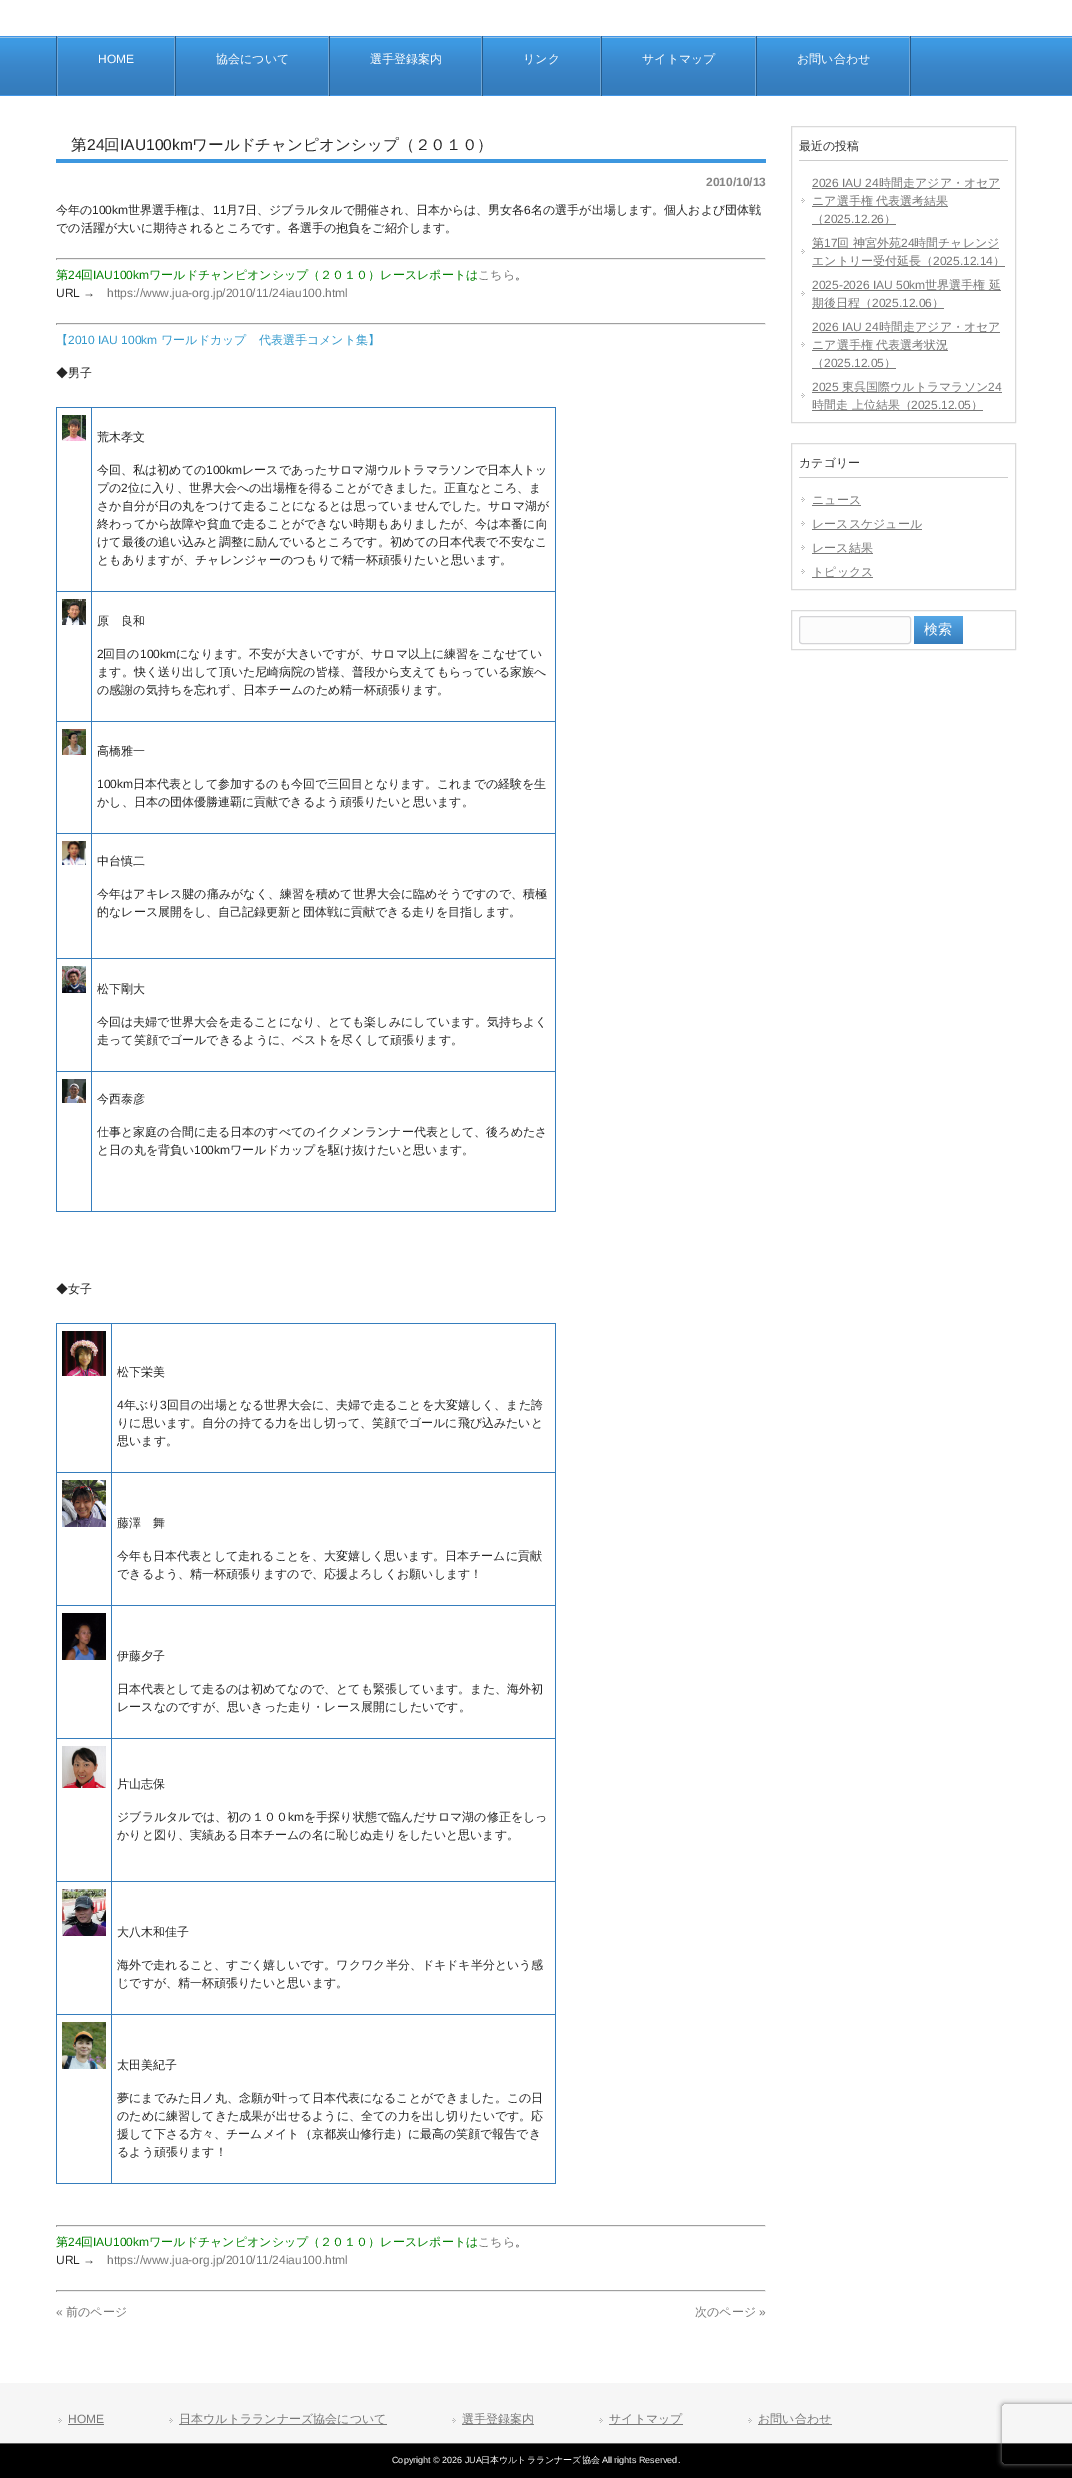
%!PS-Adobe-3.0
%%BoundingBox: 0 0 1072 2478
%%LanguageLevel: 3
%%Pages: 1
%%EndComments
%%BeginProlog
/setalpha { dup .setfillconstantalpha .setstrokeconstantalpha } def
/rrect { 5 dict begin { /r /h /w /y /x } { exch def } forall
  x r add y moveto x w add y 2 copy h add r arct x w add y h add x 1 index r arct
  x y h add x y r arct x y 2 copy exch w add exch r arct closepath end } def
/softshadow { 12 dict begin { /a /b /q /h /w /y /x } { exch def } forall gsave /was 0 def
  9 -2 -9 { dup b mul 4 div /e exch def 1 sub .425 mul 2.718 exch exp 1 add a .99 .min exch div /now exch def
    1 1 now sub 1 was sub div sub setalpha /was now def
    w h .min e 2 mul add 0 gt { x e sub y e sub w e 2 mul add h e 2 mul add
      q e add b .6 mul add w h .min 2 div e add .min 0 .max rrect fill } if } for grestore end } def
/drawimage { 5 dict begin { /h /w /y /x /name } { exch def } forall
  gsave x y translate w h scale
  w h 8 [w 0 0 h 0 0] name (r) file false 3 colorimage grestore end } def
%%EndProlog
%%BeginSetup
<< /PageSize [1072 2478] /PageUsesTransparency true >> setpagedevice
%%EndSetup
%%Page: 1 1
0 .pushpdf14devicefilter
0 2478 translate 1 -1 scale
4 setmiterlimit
1 setgray
0 0 1072 2478 rectfill
(images/1.raw) 0 36 1072 60 drawimage
0.149 0.357 0.545 setrgbcolor
910 36 1 60 rectfill
56 36 1 60 rectfill
0.439 0.655 0.843 setrgbcolor
174 36 1 60 rectfill
57 36 1 60 rectfill
328 36 1 60 rectfill
0.149 0.357 0.545 setrgbcolor
175 36 1 60 rectfill
0.439 0.655 0.843 setrgbcolor
481 36 1 60 rectfill
0.149 0.357 0.545 setrgbcolor
329 36 1 60 rectfill
0.439 0.655 0.843 setrgbcolor
600 36 1 60 rectfill
0.149 0.357 0.545 setrgbcolor
482 36 1 60 rectfill
0.439 0.655 0.843 setrgbcolor
755 36 1 60 rectfill
0.149 0.357 0.545 setrgbcolor
601 36 1 60 rectfill
0.439 0.655 0.843 setrgbcolor
909 36 1 60 rectfill
0.149 0.357 0.545 setrgbcolor
756 36 1 60 rectfill
0.239 0.592 0.875 setrgbcolor
56 159 710 4 rectfill
0.624 setgray
56 258 710 1 rectfill
0.933 setgray
765 258 1 2 rectfill
56 259 710 1 rectfill
0.624 setgray
56 258 1 2 rectfill
56 323 710 1 rectfill
0.933 setgray
765 323 1 2 rectfill
56 324 710 1 rectfill
0.624 setgray
56 323 1 2 rectfill
0.208 0.49 0.741 setrgbcolor
56 407 500 1 rectfill
555 407 1 805 rectfill
56 1211 500 1 rectfill
56 407 1 805 rectfill
91 1071 1 141 rectfill
91 1071 465 1 rectfill
91 958 1 114 rectfill
91 958 465 1 rectfill
91 833 1 126 rectfill
91 833 465 1 rectfill
91 721 1 113 rectfill
91 721 465 1 rectfill
91 591 1 131 rectfill
91 591 465 1 rectfill
91 407 1 185 rectfill
56 591 36 1 rectfill
(images/2.raw) 62 415 24 26 drawimage
56 721 36 1 rectfill
(images/3.raw) 62 599 24 26 drawimage
56 833 36 1 rectfill
(images/4.raw) 62 729 24 26 drawimage
56 958 36 1 rectfill
(images/5.raw) 62 841 24 24 drawimage
56 1071 36 1 rectfill
(images/6.raw) 62 966 24 27 drawimage
(images/7.raw) 62 1079 24 24 drawimage
56 1323 500 1 rectfill
555 1323 1 861 rectfill
56 2183 500 1 rectfill
56 1323 1 861 rectfill
111 2014 1 170 rectfill
111 2014 445 1 rectfill
111 1881 1 134 rectfill
111 1881 445 1 rectfill
111 1738 1 144 rectfill
111 1738 445 1 rectfill
111 1605 1 134 rectfill
111 1605 445 1 rectfill
111 1472 1 134 rectfill
111 1472 445 1 rectfill
111 1323 1 150 rectfill
56 1472 56 1 rectfill
(images/8.raw) 62 1331 44 45 drawimage
56 1605 56 1 rectfill
(images/9.raw) 62 1480 44 47 drawimage
56 1738 56 1 rectfill
(images/10.raw) 62 1613 44 47 drawimage
56 1881 56 1 rectfill
(images/11.raw) 62 1746 44 42 drawimage
56 2014 56 1 rectfill
(images/12.raw) 62 1889 44 47 drawimage
(images/13.raw) 62 2022 44 47 drawimage
0.624 setgray
56 2225 710 1 rectfill
0.933 setgray
765 2225 1 2 rectfill
56 2226 710 1 rectfill
0.624 setgray
56 2225 1 2 rectfill
56 2290 710 1 rectfill
0.933 setgray
765 2290 1 2 rectfill
56 2291 710 1 rectfill
0.624 setgray
56 2290 1 2 rectfill
0.855 setgray
791.5 126.5 224 296 rectstroke
0.8 setgray
799 160 209 1 rectfill
(images/14.raw) 801 198 4 5 drawimage
0.467 setgray
812 188 188 1 rectfill
812 206 136 1 rectfill
812 224 84 1 rectfill
(images/14.raw) 801 249 4 5 drawimage
812 248 187 1 rectfill
812 266 193 1 rectfill
(images/14.raw) 801 291 4 5 drawimage
812 290 189 1 rectfill
812 308 132 1 rectfill
(images/14.raw) 801 342 4 5 drawimage
812 332 188 1 rectfill
812 350 136 1 rectfill
812 368 84 1 rectfill
(images/14.raw) 801 393 4 5 drawimage
812 392 190 1 rectfill
812 410 171 1 rectfill
0.855 setgray
791.5 443.5 224 146 rectstroke
0.8 setgray
799 477 209 1 rectfill
(images/14.raw) 801 497 4 5 drawimage
0.467 setgray
812 505 49 1 rectfill
(images/14.raw) 801 521 4 5 drawimage
812 529 110 1 rectfill
(images/14.raw) 801 545 4 5 drawimage
812 553 61 1 rectfill
(images/14.raw) 801 569 4 5 drawimage
812 577 61 1 rectfill
0.855 setgray
791.5 610.5 224 39 rectstroke
0.988 setgray
799.5 616.5 111 27 2.5 rrect gsave fill grestore
0.831 0.831 0.843 setrgbcolor
stroke
gsave 914 616 49 28 3 rrect clip newpath
<< /ShadingType 2 /ColorSpace /DeviceRGB /Coords [939 616 939 644] /Extend [true true] /Function << /FunctionType 2 /Domain [0 1] /C0 [0.337 0.659 0.906] /C1 [0.208 0.49 0.741] /N 1 >> >> shfill grestore
0.965 setgray
0 2383 1072 60 rectfill
0.365 setgray
0 2443 1072 1 rectfill
(images/15.raw) 58 2418 4 5 drawimage
0.467 setgray
68 2424 36 1 rectfill
(images/15.raw) 169 2418 4 5 drawimage
179 2424 208 1 rectfill
(images/15.raw) 452 2418 4 5 drawimage
462 2424 72 1 rectfill
(images/15.raw) 599 2418 4 5 drawimage
609 2424 74 1 rectfill
(images/15.raw) 748 2418 4 5 drawimage
758 2424 74 1 rectfill
0 setgray
0 2444 1072 34 rectfill
gsave
newpath 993 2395 moveto 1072 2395 lineto 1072 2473 lineto 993 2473 lineto closepath 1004 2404 moveto 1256 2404 lineto 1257 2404 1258 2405 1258 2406 curveto 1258 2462 lineto 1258 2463 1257 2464 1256 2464 curveto 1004 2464 lineto 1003 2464 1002 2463 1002 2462 curveto 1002 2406 lineto 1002 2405 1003 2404 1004 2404 curveto closepath eoclip newpath
0.502 setgray
1002 2404 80 60 2 2.5 1 softshadow
grestore
/LiberationSans-Regular [12 0 0 -12 0 0] selectfont
1 setgray
98 63 moveto (HOME) show
/WenQuanYiZenHei-Medium [12 0 0 -12 0 0] selectfont
216 63 moveto (協会について) show
370 63 moveto (選手登録案内) show
523 63 moveto (リンク) show
642 63 moveto (サイトマップ) show
797 63 moveto (お問い合わせ) show
/WenQuanYiZenHei-Medium [15.6 0 0 -15.6 0 0] selectfont
0.145 setgray
71 150 moveto (第) show
/LiberationSans-Regular [15.6 0 0 -15.6 0 0] selectfont
87 150 moveto (24) show
/WenQuanYiZenHei-Medium [15.6 0 0 -15.6 0 0] selectfont
104 150 moveto (回) show
/LiberationSans-Regular [15.6 0 0 -15.6 0 0] selectfont
120 150 moveto (IAU100km) show
/WenQuanYiZenHei-Medium [15.6 0 0 -15.6 0 0] selectfont
192 150 moveto (ワールドチャンピオンシップ（２０１０）) show
/LiberationSans-Bold [12 0 0 -12 0 0] selectfont
0.522 setgray
706 186 moveto (2010/10/13) show
/WenQuanYiZenHei-Medium [12 0 0 -12 0 0] selectfont
0.145 setgray
56 214 moveto (今年の) show
/LiberationSans-Regular [12 0 0 -12 0 0] selectfont
92 214 moveto (100km) show
/WenQuanYiZenHei-Medium [12 0 0 -12 0 0] selectfont
128 214 moveto (世界選手権は、) show
/LiberationSans-Regular [12 0 0 -12 0 0] selectfont
213 214 moveto (11) show
/WenQuanYiZenHei-Medium [12 0 0 -12 0 0] selectfont
226 214 moveto (月) show
/LiberationSans-Regular [12 0 0 -12 0 0] selectfont
238 214 moveto (7) show
/WenQuanYiZenHei-Medium [12 0 0 -12 0 0] selectfont
245 214 moveto (日、ジブラルタルで開催され、日本からは、男女各) show
/LiberationSans-Regular [12 0 0 -12 0 0] selectfont
524 214 moveto (6) show
/WenQuanYiZenHei-Medium [12 0 0 -12 0 0] selectfont
531 214 moveto (名の選手が出場します。個人および団体戦) show
56 232 moveto (での活躍が大いに期待されるところです。各選手の抱負をご紹介します。) show
0 0.502 0 setrgbcolor
56 279 moveto (第) show
/LiberationSans-Regular [12 0 0 -12 0 0] selectfont
68 279 moveto (24) show
/WenQuanYiZenHei-Medium [12 0 0 -12 0 0] selectfont
81 279 moveto (回) show
/LiberationSans-Regular [12 0 0 -12 0 0] selectfont
93 279 moveto (IAU100km) show
/WenQuanYiZenHei-Medium [12 0 0 -12 0 0] selectfont
149 279 moveto (ワールドチャンピオンシップ（２０１０）レースレポートは) show
0.467 setgray
478 279 moveto (こちら) show
0.145 setgray
515 279 moveto (。) show
/LiberationSans-Regular [12 0 0 -12 0 0] selectfont
56 297 moveto (URL →) show
0.467 setgray
107 297 moveto (https://www.jua-org.jp/2010/11/24iau100.html) show
/WenQuanYiZenHei-Medium [12 0 0 -12 0 0] selectfont
0.2 0.6 0.8 setrgbcolor
56 344 moveto (【) show
/LiberationSans-Regular [12 0 0 -12 0 0] selectfont
68 344 moveto (2010 IAU 100km) show
/WenQuanYiZenHei-Medium [12 0 0 -12 0 0] selectfont
161 344 moveto (ワールドカップ　代表選手コメント集】) show
0.145 setgray
56 377 moveto (◆男子) show
97 441 moveto (荒木孝文) show
97 474 moveto (今回、私は初めての) show
/LiberationSans-Regular [12 0 0 -12 0 0] selectfont
206 474 moveto (100km) show
/WenQuanYiZenHei-Medium [12 0 0 -12 0 0] selectfont
242 474 moveto (レースであったサロマ湖ウルトラマラソンで日本人トッ) show
97 492 moveto (プの) show
/LiberationSans-Regular [12 0 0 -12 0 0] selectfont
121 492 moveto (2) show
/WenQuanYiZenHei-Medium [12 0 0 -12 0 0] selectfont
128 492 moveto (位に入り、世界大会への出場権を得ることができました。正直なところ、ま) show
97 510 moveto (さか自分が日の丸をつけて走ることになるとは思っていませんでした。サロマ湖が) show
97 528 moveto (終わってから故障や貧血で走ることができない時期もありましたが、今は本番に向) show
97 546 moveto (けて最後の追い込みと調整に励んでいるところです。初めての日本代表で不安なこ) show
97 564 moveto (ともありますが、チャレンジャーのつもりで精一杯頑張りたいと思います。) show
97 625 moveto (原　良和) show
/LiberationSans-Regular [12 0 0 -12 0 0] selectfont
97 658 moveto (2) show
/WenQuanYiZenHei-Medium [12 0 0 -12 0 0] selectfont
103 658 moveto (回目の) show
/LiberationSans-Regular [12 0 0 -12 0 0] selectfont
140 658 moveto (100km) show
/WenQuanYiZenHei-Medium [12 0 0 -12 0 0] selectfont
176 658 moveto (になります。不安が大きいですが、サロマ以上に練習をこなせてい) show
97 676 moveto (ます。快く送り出して頂いた尼崎病院の皆様、普段から支えてもらっている家族へ) show
97 694 moveto (の感謝の気持ちを忘れず、日本チームのため精一杯頑張ります。) show
97 755 moveto (高橋雅一) show
/LiberationSans-Regular [12 0 0 -12 0 0] selectfont
97 788 moveto (100km) show
/WenQuanYiZenHei-Medium [12 0 0 -12 0 0] selectfont
133 788 moveto (日本代表として参加するのも今回で三回目となります。これまでの経験を生) show
97 806 moveto (かし、日本の団体優勝連覇に貢献できるよう頑張りたいと思います。) show
97 865 moveto (中台慎二) show
97 898 moveto (今年はアキレス腱の痛みがなく、練習を積めて世界大会に臨めそうですので、積極) show
97 916 moveto (的なレース展開をし、自己記録更新と団体戦に貢献できる走りを目指します。) show
97 993 moveto (松下剛大) show
97 1026 moveto (今回は夫婦で世界大会を走ることになり、とても楽しみにしています。気持ちよく) show
97 1044 moveto (走って笑顔でゴールできるように、ベストを尽くして頑張ります。) show
97 1103 moveto (今西泰彦) show
97 1136 moveto (仕事と家庭の合間に走る日本のすべてのイクメンランナー代表として、後ろめたさ) show
97 1154 moveto (と日の丸を背負い) show
/LiberationSans-Regular [12 0 0 -12 0 0] selectfont
194 1154 moveto (100km) show
/WenQuanYiZenHei-Medium [12 0 0 -12 0 0] selectfont
230 1154 moveto (ワールドカップを駆け抜けたいと思います。) show
56 1293 moveto (◆女子) show
117 1376 moveto (松下栄美) show
/LiberationSans-Regular [12 0 0 -12 0 0] selectfont
117 1409 moveto (4) show
/WenQuanYiZenHei-Medium [12 0 0 -12 0 0] selectfont
124 1409 moveto (年ぶり) show
/LiberationSans-Regular [12 0 0 -12 0 0] selectfont
160 1409 moveto (3) show
/WenQuanYiZenHei-Medium [12 0 0 -12 0 0] selectfont
167 1409 moveto (回目の出場となる世界大会に、夫婦で走ることを大変嬉しく、また誇) show
117 1427 moveto (りに思います。自分の持てる力を出し切って、笑顔でゴールに飛び込みたいと) show
117 1445 moveto (思います。) show
117 1527 moveto (藤澤　舞) show
117 1560 moveto (今年も日本代表として走れることを、大変嬉しく思います。日本チームに貢献) show
117 1578 moveto (できるよう、精一杯頑張りますので、応援よろしくお願いします！) show
117 1660 moveto (伊藤夕子) show
117 1693 moveto (日本代表として走るのは初めてなので、とても緊張しています。また、海外初) show
117 1711 moveto (レースなのですが、思いきった走り・レース展開にしたいです。) show
117 1788 moveto (片山志保) show
117 1821 moveto (ジブラルタルでは、初の１００) show
/LiberationSans-Regular [12 0 0 -12 0 0] selectfont
288 1821 moveto (km) show
/WenQuanYiZenHei-Medium [12 0 0 -12 0 0] selectfont
304 1821 moveto (を手探り状態で臨んだサロマ湖の修正をしっ) show
117 1839 moveto (かりと図り、実績ある日本チームの名に恥じぬ走りをしたいと思います。) show
117 1936 moveto (大八木和佳子) show
117 1969 moveto (海外で走れること、すごく嬉しいです。ワクワク半分、ドキドキ半分という感) show
117 1987 moveto (じですが、精一杯頑張りたいと思います。) show
117 2069 moveto (太田美紀子) show
117 2102 moveto (夢にまでみた日ノ丸、念願が叶って日本代表になることができました。この日) show
117 2120 moveto (のために練習してきた成果が出せるように、全ての力を出し切りたいです。応) show
117 2138 moveto (援して下さる方々、チームメイト（京都炭山修行走）に最高の笑顔で報告でき) show
117 2156 moveto (るよう頑張ります！) show
0 0.502 0 setrgbcolor
56 2246 moveto (第) show
/LiberationSans-Regular [12 0 0 -12 0 0] selectfont
68 2246 moveto (24) show
/WenQuanYiZenHei-Medium [12 0 0 -12 0 0] selectfont
81 2246 moveto (回) show
/LiberationSans-Regular [12 0 0 -12 0 0] selectfont
93 2246 moveto (IAU100km) show
/WenQuanYiZenHei-Medium [12 0 0 -12 0 0] selectfont
149 2246 moveto (ワールドチャンピオンシップ（２０１０）レースレポートは) show
0.467 setgray
478 2246 moveto (こちら) show
0.145 setgray
515 2246 moveto (。) show
/LiberationSans-Regular [12 0 0 -12 0 0] selectfont
56 2264 moveto (URL →) show
0.467 setgray
107 2264 moveto (https://www.jua-org.jp/2010/11/24iau100.html) show
56 2316 moveto («) show
/WenQuanYiZenHei-Medium [12 0 0 -12 0 0] selectfont
66 2316 moveto (前のページ) show
695 2316 moveto (次のページ) show
/LiberationSans-Regular [12 0 0 -12 0 0] selectfont
759 2316 moveto (») show
/WenQuanYiZenHei-Medium [12 0 0 -12 0 0] selectfont
0.2 setgray
799 150 moveto (最近の投稿) show
/LiberationSans-Regular [12 0 0 -12 0 0] selectfont
0.467 setgray
812 187 moveto (2026 IAU 24) show
/WenQuanYiZenHei-Medium [12 0 0 -12 0 0] selectfont
879 187 moveto (時間走アジア・オセア) show
812 205 moveto (ニア選手権 代表選考結果) show
812 223 moveto (（) show
/LiberationSans-Regular [12 0 0 -12 0 0] selectfont
824 223 moveto (2025.12.26) show
/WenQuanYiZenHei-Medium [12 0 0 -12 0 0] selectfont
884 223 moveto (）) show
812 247 moveto (第) show
/LiberationSans-Regular [12 0 0 -12 0 0] selectfont
824 247 moveto (17) show
/WenQuanYiZenHei-Medium [12 0 0 -12 0 0] selectfont
837 247 moveto (回 神宮外苑) show
/LiberationSans-Regular [12 0 0 -12 0 0] selectfont
901 247 moveto (24) show
/WenQuanYiZenHei-Medium [12 0 0 -12 0 0] selectfont
914 247 moveto (時間チャレンジ) show
812 265 moveto (エントリー受付延長（) show
/LiberationSans-Regular [12 0 0 -12 0 0] selectfont
933 265 moveto (2025.12.14) show
/WenQuanYiZenHei-Medium [12 0 0 -12 0 0] selectfont
993 265 moveto (）) show
/LiberationSans-Regular [12 0 0 -12 0 0] selectfont
812 289 moveto (2025-2026 IAU 50km) show
/WenQuanYiZenHei-Medium [12 0 0 -12 0 0] selectfont
925 289 moveto (世界選手権 延) show
812 307 moveto (期後日程（) show
/LiberationSans-Regular [12 0 0 -12 0 0] selectfont
872 307 moveto (2025.12.06) show
/WenQuanYiZenHei-Medium [12 0 0 -12 0 0] selectfont
932 307 moveto (）) show
/LiberationSans-Regular [12 0 0 -12 0 0] selectfont
812 331 moveto (2026 IAU 24) show
/WenQuanYiZenHei-Medium [12 0 0 -12 0 0] selectfont
879 331 moveto (時間走アジア・オセア) show
812 349 moveto (ニア選手権 代表選考状況) show
812 367 moveto (（) show
/LiberationSans-Regular [12 0 0 -12 0 0] selectfont
824 367 moveto (2025.12.05) show
/WenQuanYiZenHei-Medium [12 0 0 -12 0 0] selectfont
884 367 moveto (）) show
/LiberationSans-Regular [12 0 0 -12 0 0] selectfont
812 391 moveto (2025) show
/WenQuanYiZenHei-Medium [12 0 0 -12 0 0] selectfont
842 391 moveto (東呉国際ウルトラマラソン) show
/LiberationSans-Regular [12 0 0 -12 0 0] selectfont
988 391 moveto (24) show
/WenQuanYiZenHei-Medium [12 0 0 -12 0 0] selectfont
812 409 moveto (時間走 上位結果（) show
/LiberationSans-Regular [12 0 0 -12 0 0] selectfont
911 409 moveto (2025.12.05) show
/WenQuanYiZenHei-Medium [12 0 0 -12 0 0] selectfont
971 409 moveto (）) show
0.2 setgray
799 467 moveto (カテゴリー) show
0.467 setgray
812 504 moveto (ニュース) show
812 528 moveto (レーススケジュール) show
812 552 moveto (レース結果) show
812 576 moveto (トピックス) show
/WenQuanYiZenHei-Medium [14 0 0 -14 0 0] selectfont
1 setgray
924 634 moveto (検索) show
/LiberationSans-Regular [12 0 0 -12 0 0] selectfont
0.467 setgray
68 2423 moveto (HOME) show
/WenQuanYiZenHei-Medium [12 0 0 -12 0 0] selectfont
179 2423 moveto (日本ウルトラランナーズ協会について) show
462 2423 moveto (選手登録案内) show
609 2423 moveto (サイトマップ) show
758 2423 moveto (お問い合わせ) show
/LiberationSans-Regular [9 0 0 -9 0 0] selectfont
1 setgray
392 2463 moveto (Copyright © 2026 JUA) show
/WenQuanYiZenHei-Medium [9 0 0 -9 0 0] selectfont
481 2463 moveto (日本ウルトラランナーズ協会) show
/LiberationSans-Regular [9 0 0 -9 0 0] selectfont
602 2463 moveto (All rights Reserved.) show
.poppdf14devicefilter showpage
%%EOF
